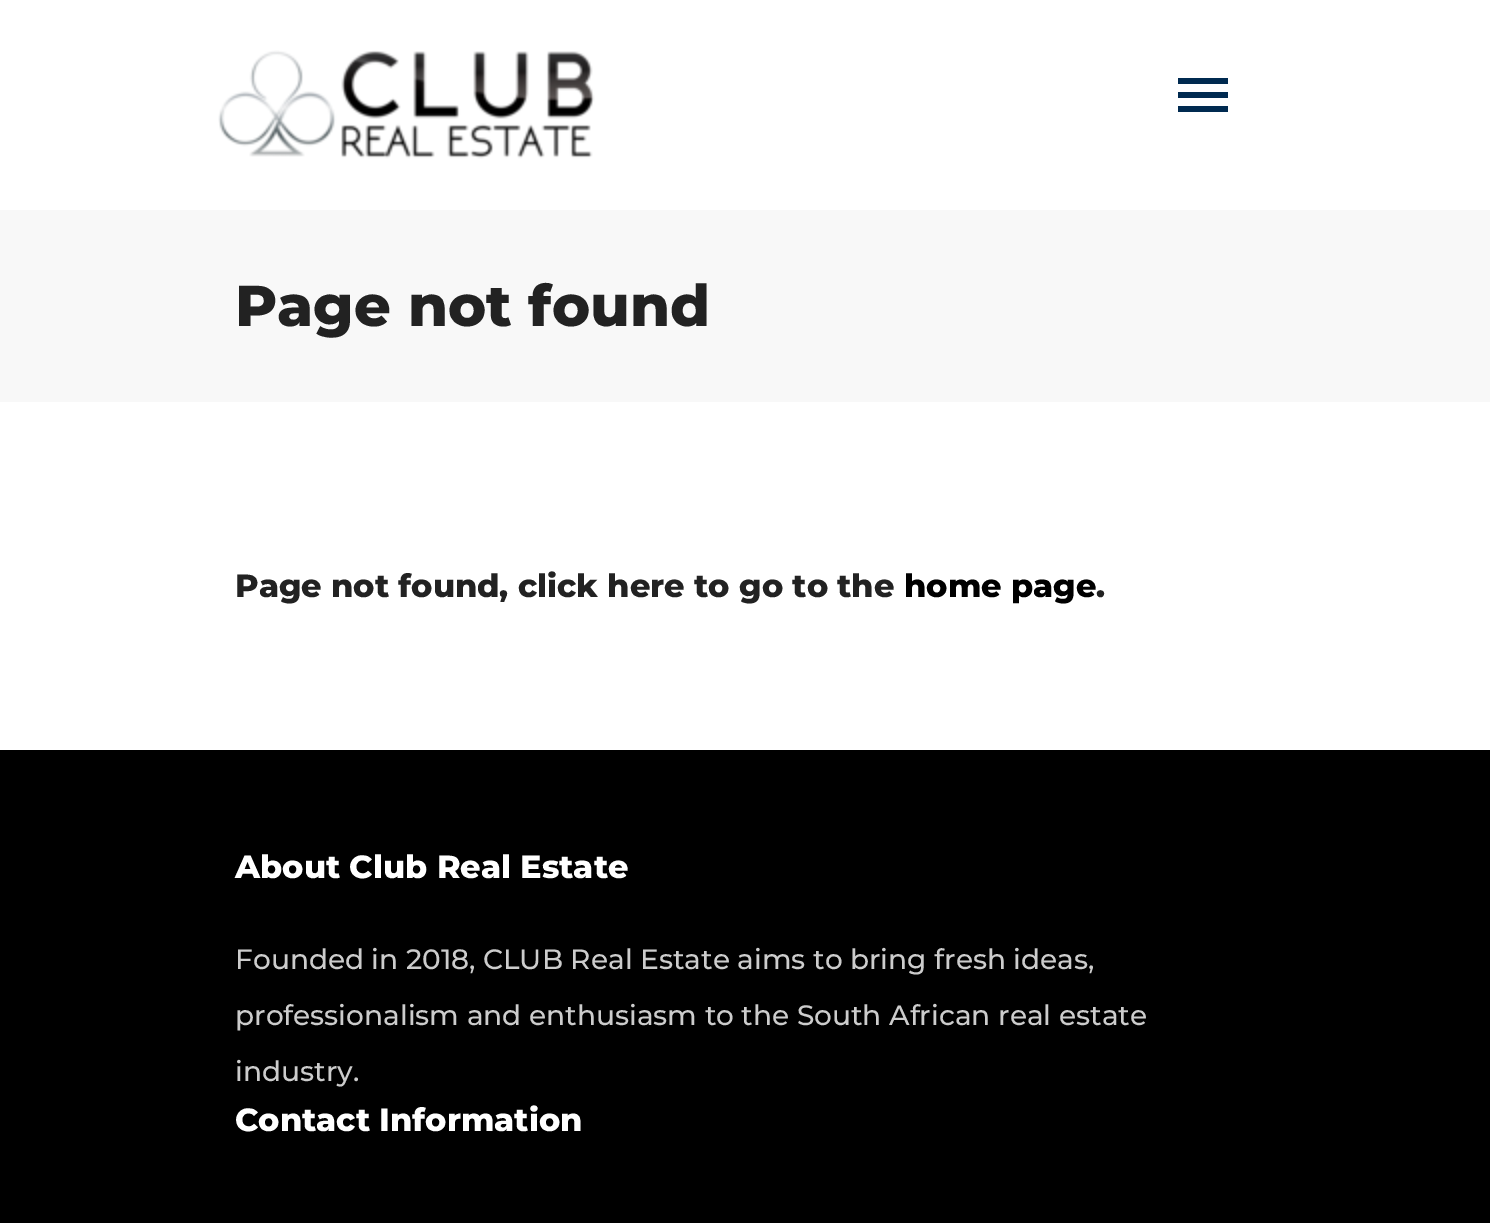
%!PS-Adobe-3.0
%%BoundingBox: 0 0 1490 1223
%%LanguageLevel: 3
%%Pages: 1
%%EndComments
%%BeginProlog
/drawimage { 5 dict begin { /h /w /y /x /name } { exch def } forall
  gsave x y translate w h scale
  w h 8 [w 0 0 h 0 0] name (r) file false 3 colorimage grestore end } def
%%EndProlog
%%BeginSetup
<< /PageSize [1490 1223] >> setpagedevice
%%EndSetup
%%Page: 1 1
0 1223 translate 1 -1 scale
4 setmiterlimit
1 setgray
0 0 1490 1223 rectfill
(images/1.raw) 218 50 377 109 drawimage
0 0.165 0.314 setrgbcolor
1178 78 50 6 rectfill
1178 92 50 6 rectfill
1178 106 50 6 rectfill
0.973 setgray
0 210 1490 192 rectfill
0 setgray
0 750 1490 473 rectfill
/Montserrat-ExtraBold [57.5 0 0 -57.5 0 0] selectfont
0.133 setgray
235 326 moveto (Page not found) show
/Montserrat-ExtraBold [32 0 0 -32 0 0] selectfont
235 597 moveto (Page not found, click here to go to the) show
0 setgray
904 597 moveto (home page) show
0.133 setgray
1096 597 moveto (.) show
1 setgray
235 878 moveto (About Club Real Estate) show
/Montserrat-Medium [28 0 0 -28 0 0] selectfont
0.8 setgray
235 969 moveto (Founded in 2018, CLUB Real Estate aims to bring fresh ideas,) show
235 1025 moveto (professionalism and enthusiasm to the South African real estate) show
235 1081 moveto (industry.) show
/Montserrat-ExtraBold [32 0 0 -32 0 0] selectfont
1 setgray
235 1131 moveto (Contact Information) show
showpage
%%EOF
